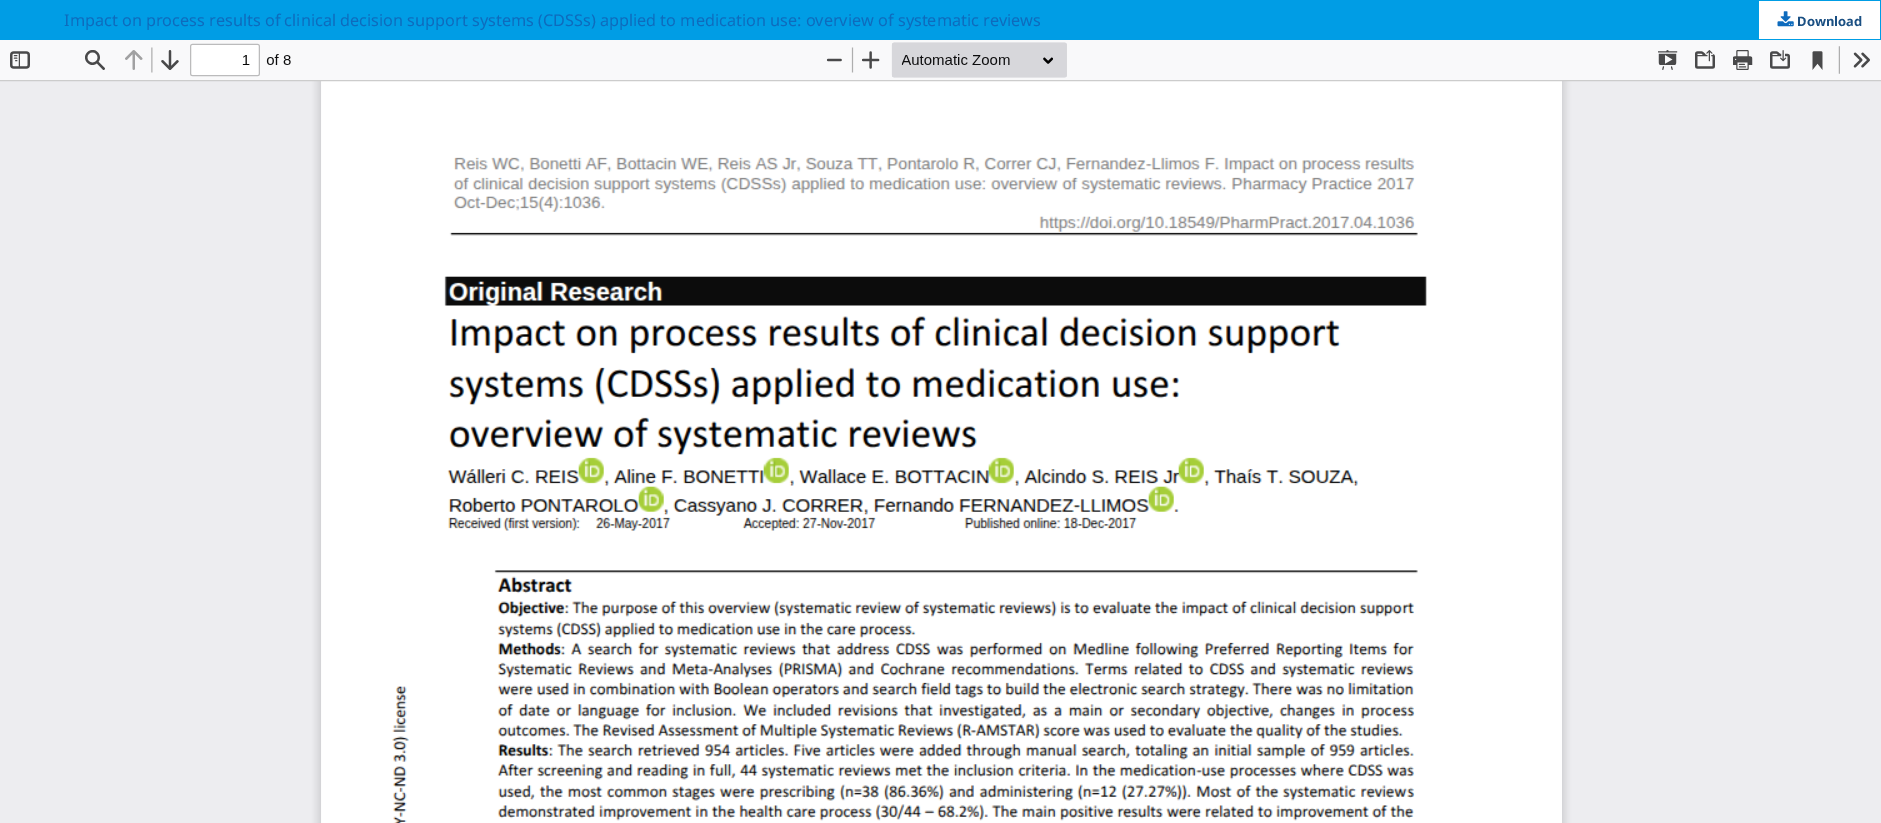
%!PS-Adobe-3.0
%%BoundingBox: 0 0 1881 823
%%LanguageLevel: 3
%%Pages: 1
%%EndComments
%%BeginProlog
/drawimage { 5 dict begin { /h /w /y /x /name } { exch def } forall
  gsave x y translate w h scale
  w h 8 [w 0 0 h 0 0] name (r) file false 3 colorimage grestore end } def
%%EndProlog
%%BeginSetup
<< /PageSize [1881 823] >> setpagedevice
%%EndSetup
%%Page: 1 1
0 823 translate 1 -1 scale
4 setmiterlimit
1 setgray
0 0 1881 823 rectfill
0 0.616 0.898 setrgbcolor
0 0 1881 40 rectfill
1 setgray
1759 1 121 38 rectfill
(images/1.raw) 1777 11 17 16 drawimage
(images/2.raw) 0 40 1881 783 drawimage
/NotoSans-Regular [16.25 0 0 -16.25 0 0] selectfont
0.055 0.42 0.741 setrgbcolor
64 26 moveto (Impact on process results of clinical decision support systems \(CDSSs\) applied to medication use: overview of systematic reviews) show
/NotoSans-Bold [13 0 0 -13 0 0] selectfont
0.106 0.314 0.514 setrgbcolor
1797 26 moveto (Download) show
showpage
%%EOF
